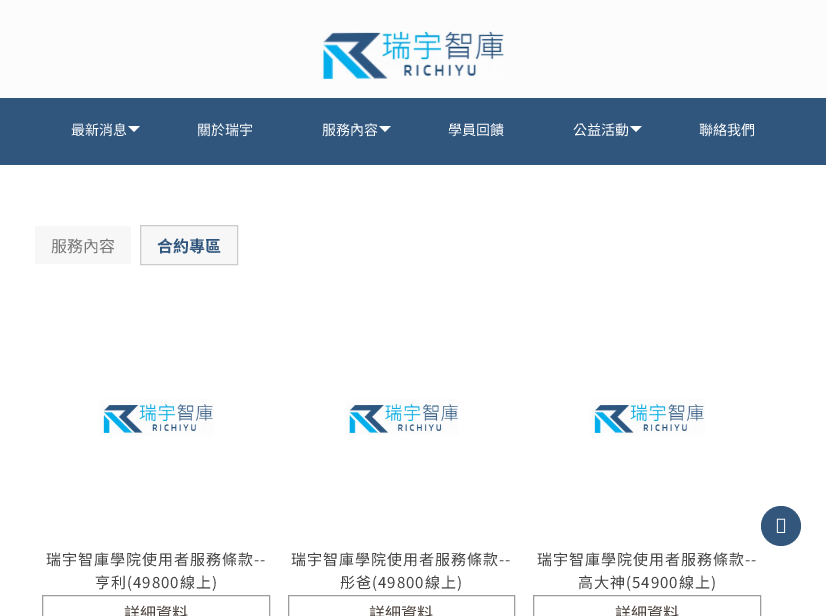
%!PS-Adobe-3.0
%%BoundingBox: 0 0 826 616
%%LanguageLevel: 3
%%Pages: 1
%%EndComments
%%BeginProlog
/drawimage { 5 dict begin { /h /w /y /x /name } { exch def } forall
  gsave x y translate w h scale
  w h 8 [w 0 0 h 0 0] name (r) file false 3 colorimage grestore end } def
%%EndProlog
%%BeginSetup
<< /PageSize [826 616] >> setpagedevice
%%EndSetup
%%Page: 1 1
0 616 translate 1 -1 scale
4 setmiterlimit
1 setgray
0 0 826 616 rectfill
0.992 0.988 0.992 setrgbcolor
0 0 826 98 rectfill
(images/1.raw) 320 30 184 50 drawimage
0.188 0.337 0.494 setrgbcolor
0 98 826 67 rectfill
1 setgray
newpath 128 126 moveto 140 126 lineto 134 132 lineto closepath fill
newpath 379 126 moveto 391 126 lineto 385 132 lineto closepath fill
newpath 630 126 moveto 642 126 lineto 636 132 lineto closepath fill
0.969 setgray
35 226 96 38 rectfill
newpath 140.5 225.5 moveto 237.5 225.5 lineto 237.5 264.5 lineto 140.5 264.5 lineto closepath gsave fill grestore
0.8 setgray
stroke
(images/2.raw) 99 399 115 37 drawimage
0.616 setgray
42.5 595.5 227 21 rectstroke
(images/3.raw) 345 399 114 36 drawimage
288.5 595.5 226 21 rectstroke
(images/2.raw) 590 399 115 37 drawimage
533.5 595.5 227 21 rectstroke
0.2 0.341 0.486 setrgbcolor
newpath 781 526 20 0 360 arc closepath fill
(images/4.raw) 776 518 10 15 drawimage
/NotoSansTC-Regular [14 0 0 -14 0 0] selectfont
1 setgray
71 135 moveto (最新消息) show
197 135 moveto (關於瑞宇) show
322 135 moveto (服務內容) show
448 135 moveto (學員回饋) show
573 135 moveto (公益活動) show
699 135 moveto (聯絡我們) show
/NotoSansTC-Regular [16 0 0 -16 0 0] selectfont
0.467 setgray
51 252 moveto (服務內容) show
/NotoSansTC-Bold [16 0 0 -16 0 0] selectfont
0.188 0.337 0.494 setrgbcolor
157 252 moveto (合約專區) show
/NotoSansTC-Regular [15 0 0 -15 0 0] selectfont
0.267 setgray
46 565 moveto 1 0 (瑞宇智庫學院使用者服務條款--) ashow
95 588 moveto 1 0 (亨利\(49800線上\)) ashow
/NotoSansTC-Regular [16 0 0 -16 0 0] selectfont
0.286 0.247 0.227 setrgbcolor
124 619 moveto (詳細資料) show
/NotoSansTC-Regular [15 0 0 -15 0 0] selectfont
0.267 setgray
291 565 moveto 1 0 (瑞宇智庫學院使用者服務條款--) ashow
340 588 moveto 1 0 (彤爸\(49800線上\)) ashow
/NotoSansTC-Regular [16 0 0 -16 0 0] selectfont
0.286 0.247 0.227 setrgbcolor
369 619 moveto (詳細資料) show
/NotoSansTC-Regular [15 0 0 -15 0 0] selectfont
0.267 setgray
537 565 moveto 1 0 (瑞宇智庫學院使用者服務條款--) ashow
578 588 moveto 1 0 (高大神\(54900線上\)) ashow
/NotoSansTC-Regular [16 0 0 -16 0 0] selectfont
0.286 0.247 0.227 setrgbcolor
615 619 moveto (詳細資料) show
showpage
%%EOF
